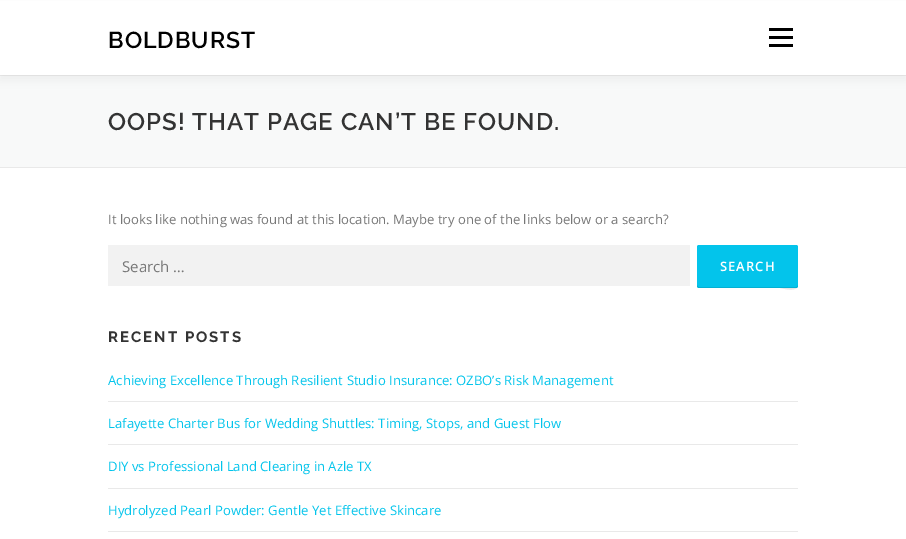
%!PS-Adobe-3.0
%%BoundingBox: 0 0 906 539
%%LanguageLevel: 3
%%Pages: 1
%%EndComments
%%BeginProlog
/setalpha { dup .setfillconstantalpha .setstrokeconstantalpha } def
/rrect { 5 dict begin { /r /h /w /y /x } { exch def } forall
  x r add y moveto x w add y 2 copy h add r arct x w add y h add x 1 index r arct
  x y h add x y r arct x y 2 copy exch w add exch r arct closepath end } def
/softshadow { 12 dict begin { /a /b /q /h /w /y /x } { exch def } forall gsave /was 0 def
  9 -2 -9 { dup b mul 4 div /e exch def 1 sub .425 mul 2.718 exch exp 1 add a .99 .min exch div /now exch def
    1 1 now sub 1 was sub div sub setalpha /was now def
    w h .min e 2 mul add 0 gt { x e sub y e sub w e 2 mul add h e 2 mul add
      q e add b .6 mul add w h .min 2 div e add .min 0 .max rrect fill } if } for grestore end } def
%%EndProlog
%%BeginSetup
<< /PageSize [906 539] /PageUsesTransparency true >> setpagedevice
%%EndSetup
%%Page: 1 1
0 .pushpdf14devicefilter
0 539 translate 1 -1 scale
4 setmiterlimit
1 setgray
0 0 906 539 rectfill
0.973 0.976 0.976 setrgbcolor
0 76 906 91 rectfill
0.914 setgray
0 75 906 1 rectfill
0.196 setgray
0 5 906 75 0 5 0.06 softshadow
1 setgray
0 1 906 74 rectfill
0 setgray
769 36 24 3 rectfill
769 28 24 3 rectfill
769 44 24 3 rectfill
0.914 setgray
0 167 906 1 rectfill
0.949 setgray
108 245 582 41 rectfill
0.012 0.769 0.922 setrgbcolor
697 245 101 43 2 rrect fill
0.1 setalpha
0 setgray
newpath 697 285 moveto 697 286 697 288 699 288 curveto 780 288 lineto 781 288 798 293 798 285 curveto 798 286 797 287 796 287 curveto 699 287 lineto 698 287 697 286 697 285 curveto closepath fill
1 setalpha
0.914 setgray
108 401 690 1 rectfill
108 444 690 1 rectfill
108 488 690 1 rectfill
108 531 690 1 rectfill
/Raleway-SemiBold [23 0 0 -23 0 0] selectfont
0 setgray
108 48 moveto 1 0 (BOLDBURST) ashow
/Raleway-SemiBold [24 0 0 -24 0 0] selectfont
0.2 setgray
108 130 moveto 1 0 (OOPS! THAT PAGE CAN’T BE FOUND.) ashow
/OpenSans-Regular [13.1 0 0 -13.1 0 0] selectfont
0.467 setgray
108 224 moveto (It looks like nothing was found at this location. Maybe try one of the links below or a search?) show
/OpenSans-Regular [15 0 0 -15 0 0] selectfont
122 272 moveto (Search …) show
/OpenSans-SemiBold [13 0 0 -13 0 0] selectfont
1 setgray
720 271 moveto 1 0 (SEARCH) ashow
/Raleway-Bold [15 0 0 -15 0 0] selectfont
0.2 setgray
108 342 moveto 2 0 (RECENT POSTS) ashow
/OpenSans-Regular [13.1 0 0 -13.1 0 0] selectfont
0.012 0.769 0.922 setrgbcolor
108 385 moveto (Achieving Excellence Through Resilient Studio Insurance: OZBO’s Risk Management) show
108 428 moveto (Lafayette Charter Bus for Wedding Shuttles: Timing, Stops, and Guest Flow) show
108 471 moveto (DIY vs Professional Land Clearing in Azle TX) show
108 515 moveto (Hydrolyzed Pearl Powder: Gentle Yet Effective Skincare) show
.poppdf14devicefilter showpage
%%EOF
